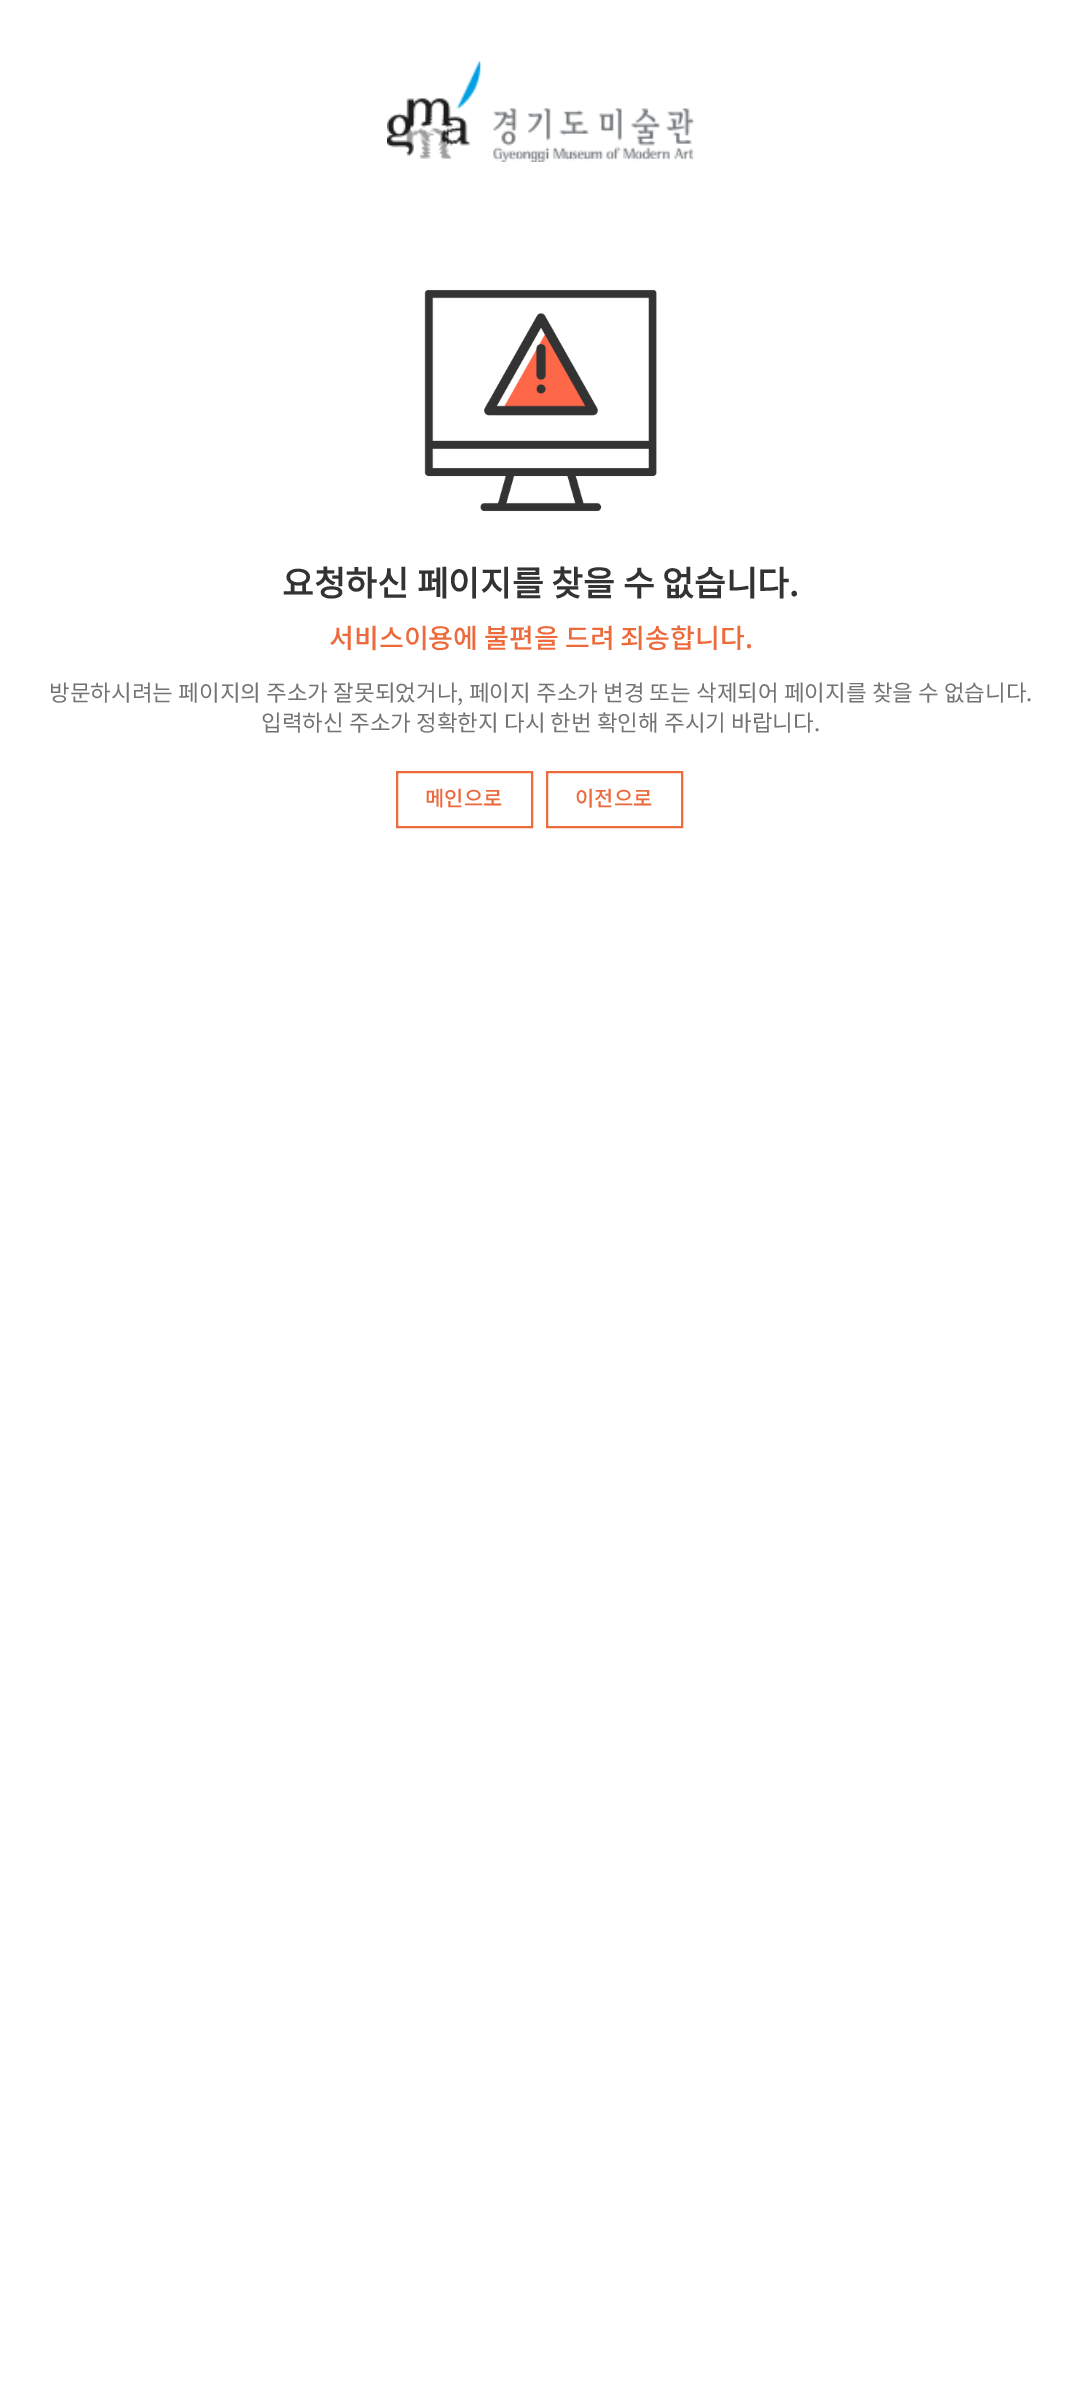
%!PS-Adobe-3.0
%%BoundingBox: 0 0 1081 2408
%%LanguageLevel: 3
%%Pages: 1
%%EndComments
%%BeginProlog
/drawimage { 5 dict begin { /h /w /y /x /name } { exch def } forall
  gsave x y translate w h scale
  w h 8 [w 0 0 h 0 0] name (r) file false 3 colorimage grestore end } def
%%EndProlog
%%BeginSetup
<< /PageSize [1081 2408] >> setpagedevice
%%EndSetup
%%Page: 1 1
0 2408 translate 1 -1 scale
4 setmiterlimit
1 setgray
0 0 1081 2408 rectfill
(images/1.raw) 387 61 308 101 drawimage
(images/2.raw) 424 289 233 223 drawimage
0.929 0.416 0.239 setrgbcolor
2 setlinewidth
397 772 135 55 rectstroke
547 772 135 55 rectstroke
/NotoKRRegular-Bold [34.5 0 0 -34.5 0 0] selectfont
0.2 setgray
282 596 moveto (요청하신 페이지를 찾을 수 없습니다.) show
/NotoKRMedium-Medium [27 0 0 -27 0 0] selectfont
0.929 0.416 0.239 setrgbcolor
329 648 moveto (서비스이용에 불편을 드려 죄송합니다.) show
/NotoKRRegular-Regular [22.5 0 0 -22.5 0 0] selectfont
0.451 setgray
49 701 moveto (방문하시려는 페이지의 주소가 잘못되었거나, 페이지 주소가 변경 또는 삭제되어 페이지를 찾을 수 없습니다.) show
261 731 moveto (입력하신 주소가 정확한지 다시 한번 확인해 주시기 바랍니다.) show
/NotoKRMedium-Medium [21 0 0 -21 0 0] selectfont
0.929 0.416 0.239 setrgbcolor
425 806 moveto (메인으로) show
575 806 moveto (이전으로) show
showpage
%%EOF
